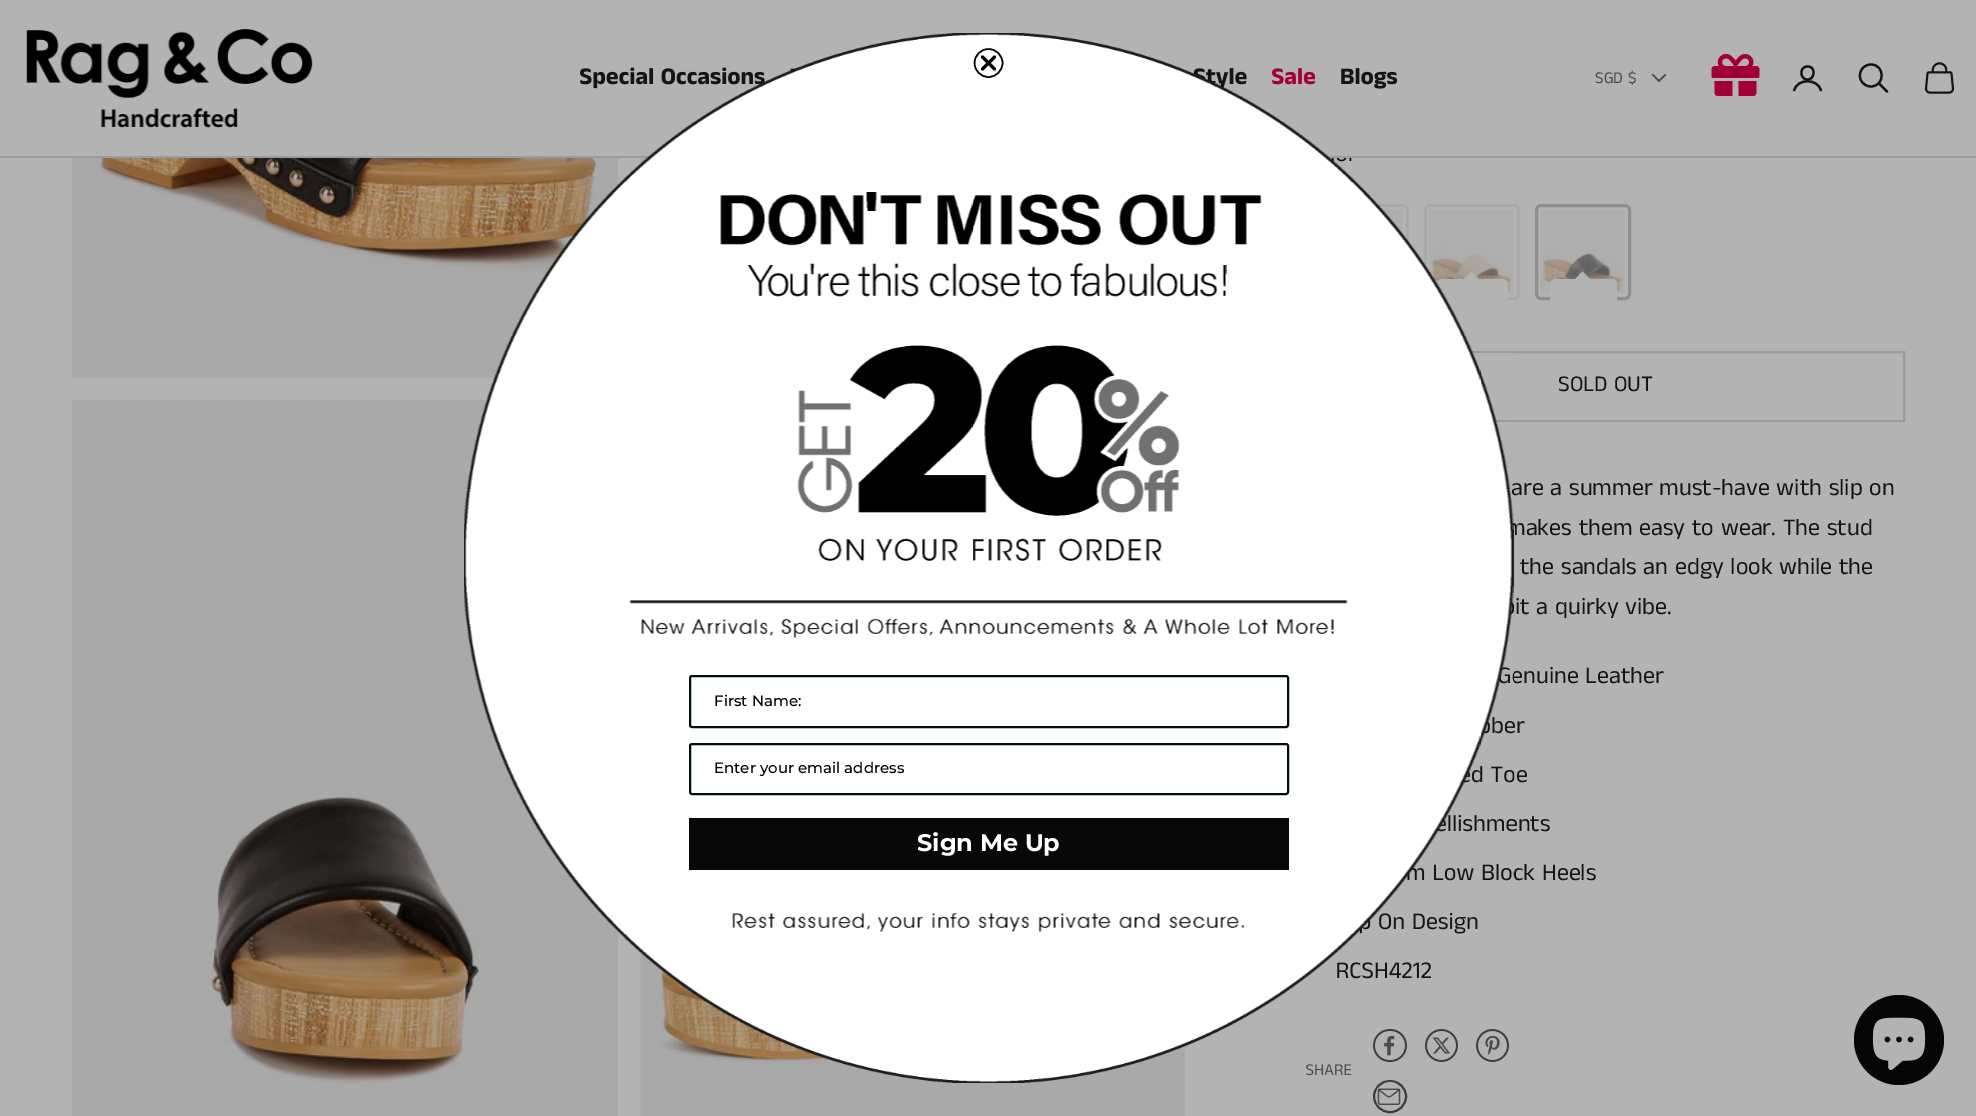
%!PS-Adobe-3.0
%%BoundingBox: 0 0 1976 1116
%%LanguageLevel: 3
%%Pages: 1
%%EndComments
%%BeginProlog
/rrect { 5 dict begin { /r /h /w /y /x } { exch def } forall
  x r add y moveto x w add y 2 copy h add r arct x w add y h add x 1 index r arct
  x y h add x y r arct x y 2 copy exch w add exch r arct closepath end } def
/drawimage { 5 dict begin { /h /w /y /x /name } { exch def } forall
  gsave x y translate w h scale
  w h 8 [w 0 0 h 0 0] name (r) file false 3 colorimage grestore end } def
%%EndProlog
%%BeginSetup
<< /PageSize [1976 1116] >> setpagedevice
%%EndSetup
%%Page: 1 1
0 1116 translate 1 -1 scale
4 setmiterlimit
0.702 setgray
0 0 1976 1116 rectfill
0.608 setgray
0 156 1976 2 rectfill
(images/1.raw) 26 29 287 99 drawimage
0.294 setgray
1.5 setlinewidth
2 setlinecap
newpath 1653 75 moveto 1659 81 lineto 1665 75 lineto stroke
(images/2.raw) 1711 54 49 42 drawimage
0.078 setgray
2.2 setlinewidth
1 setlinecap
1 setlinejoin
newpath 1813.5 73 moveto 1813 83 1800 81 1801.5 71.5 curveto 1802.5 64 1814.5 65 1813.5 73 curveto closepath stroke
0 setlinecap
0 setlinejoin
newpath 1794 91 moveto 1796.5 78 1818.5 78 1821 91 curveto stroke
newpath 1871 64.5 moveto 1859.5 64.5 1855.5 79.5 1865.5 85 curveto 1867 86 1869 86.5 1871 86.5 curveto 1885.5 86 1885 64.5 1871 64.5 curveto closepath stroke
1 setlinecap
newpath 1879.5 84 moveto 1887 91.5 lineto stroke
(images/3.raw) 1924 62 31 32 drawimage
(images/5.raw) 72 158 546 220 drawimage
(images/6.raw) 640 158 8 7 drawimage
(images/7.raw) 72 400 546 716 drawimage
(images/8.raw) 640 951 545 165 drawimage
0.663 setgray
3 setlinewidth
0 setlinecap
1314.5 205.5 93 93 4.5 rrect stroke
(images/9.raw) 1381 209 22 27 drawimage
1425.5 205.5 93 93 4.5 rrect stroke
(images/10.raw) 1429 209 85 85 drawimage
0.702 setgray
newpath 1479 279 moveto 1464 279 lineto 1471.5 271.5 lineto closepath fill
1437 279 71 33 5 rrect fill
0.561 setgray
1536.5 205.5 93 93 4.5 rrect stroke
(images/11.raw) 1540 209 85 85 drawimage
0.702 setgray
newpath 1590 279 moveto 1575 279 lineto 1582.5 271.5 lineto closepath fill
1550 279 67 33 5 rrect fill
0.608 setgray
2 setlinewidth
1306 352 598 69 rectstroke
0.243 setgray
1374 1030 32 31 15.5 rrect stroke
(images/12.raw) 1384 1035 11 21 drawimage
newpath 1441.5 1045.5 15.5 0 360 arc closepath stroke
(images/13.raw) 1432 1037 18 17 drawimage
newpath 1492.5 1045.5 15.5 0 360 arc closepath stroke
(images/14.raw) 1485 1035 15 20 drawimage
1374 1081 32 31 15.5 rrect stroke
(images/15.raw) 1377 1088 24 17 drawimage
0.024 setgray
newpath 1899 1040 45 0 360 arc closepath fill
(images/16.raw) 1872 1017 54 53 drawimage
/AnekTamil-Bold [24 0 0 -24 0 0] selectfont
0.078 setgray
579 84 moveto (Special Occasions) show
1206 84 moveto (tyle) show
0.635 0 0.208 setrgbcolor
1271 84 moveto (Sale) show
0.078 setgray
1340 84 moveto (Blogs) show
/AnekTamil-Regular [16.5 0 0 -16.5 0 0] selectfont
0.294 setgray
1595 83 moveto (SGD $) show
/AnekTamil-Regular [22.5 0 0 -22.5 0 0] selectfont
0.078 setgray
1558 391 moveto (SOLD OUT) show
/AnekTamil-Regular [24 0 0 -24 0 0] selectfont
1511 495 moveto (are a summer must-have with slip on) show
1506 535 moveto (makes them easy to wear. The stud) show
1520 574 moveto (the sandals an edgy look while the) show
1515 614 moveto (it a quirky vibe.) show
1497 683 moveto (Genuine Leather) show
1491 733 moveto (ber) show
1471 782 moveto (d Toe) show
1447 831 moveto (llishments) show
1406 880 moveto (m Low Block Heels) show
1378 929 moveto (On Design) show
1335 978 moveto (RCSH4212) show
/AnekTamil-Regular [16.5 0 0 -16.5 0 0] selectfont
0.294 setgray
1305 1075 moveto (SHARE) show
(images/4.raw) 464 33 1050 1050 drawimage
0 setgray
1.5 setlinewidth
newpath 988.5 63 14 0 360 arc closepath stroke
3 setlinewidth
1 setlinecap
1 setlinejoin
newpath 982.5 57 moveto 994.5 69 lineto 982.5 69 moveto 994.5 57 lineto closepath stroke
0.031 setgray
689 818 600 52 rectfill
/Montserrat-Bold [24 0 0 -24 0 0] selectfont
1 setgray
917 851 moveto (Sign Me Up) show
0.004 0.063 0.043 setrgbcolor
2 setlinewidth
0 setlinecap
0 setlinejoin
690 744 598 50 2 rrect stroke
/Montserrat-Medium [15 0 0 -15 0 0] selectfont
0 setgray
714 773 moveto (Enter your email address) show
0.004 0.063 0.043 setrgbcolor
690 676 598 51 2 rrect stroke
0 setgray
714 706 moveto (First Name:) show
showpage
%%EOF
